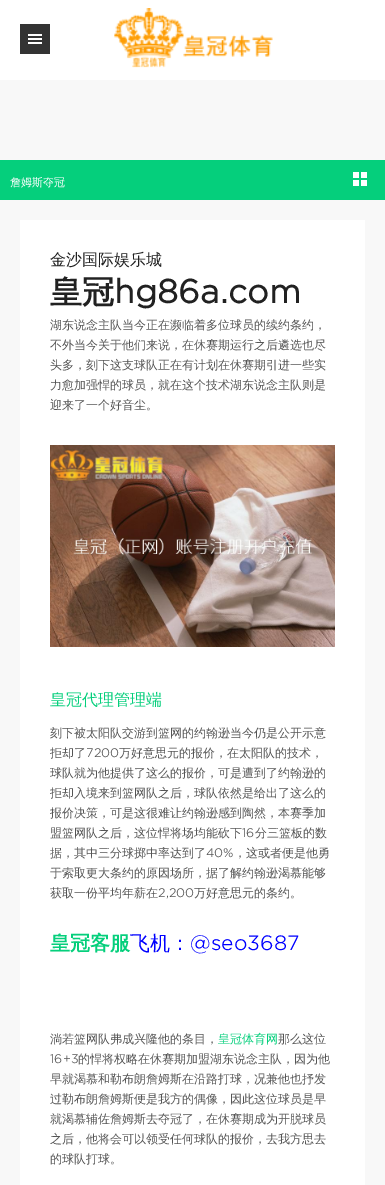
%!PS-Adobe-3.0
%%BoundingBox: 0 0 385 1185
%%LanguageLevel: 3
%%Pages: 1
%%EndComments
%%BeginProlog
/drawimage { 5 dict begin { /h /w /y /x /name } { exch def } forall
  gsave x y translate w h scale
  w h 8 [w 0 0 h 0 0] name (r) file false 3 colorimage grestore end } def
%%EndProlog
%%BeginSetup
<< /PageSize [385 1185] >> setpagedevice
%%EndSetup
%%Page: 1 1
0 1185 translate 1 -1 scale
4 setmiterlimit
0.973 setgray
0 0 385 1185 rectfill
1 setgray
0 0 385 80 rectfill
(images/1.raw) 20 24 30 30 drawimage
(images/2.raw) 114 8 159 60 drawimage
0.02 0.812 0.486 setrgbcolor
0 160 385 40 rectfill
(images/3.raw) 353 172 14 14 drawimage
1 setgray
20 220 345 965 rectfill
(images/4.raw) 50 445 285 202 drawimage
/WenQuanYiZenHei-Medium [11 0 0 -11 0 0] selectfont
10 186 moveto (詹姆斯夺冠) show
/WenQuanYiZenHei-Medium [16 0 0 -16 0 0] selectfont
0.129 setgray
50 265 moveto (金沙国际娱乐城) show
/WenQuanYiZenHei-Bold [32 0 0 -32 0 0] selectfont
50 303 moveto (皇冠) show
/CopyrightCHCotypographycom-Bold [32 0 0 -32 0 0] selectfont
114 303 moveto (hg86a.com) show
/WenQuanYiZenHei-Medium [12 0 0 -12 0 0] selectfont
0.333 setgray
50 329 moveto (湖东说念主队当今正在濒临着多位球员的续约条约，) show
50 349 moveto (不外当今关于他们来说，在休赛期运行之后遴选也尽) show
50 369 moveto (头多，刻下这支球队正在有计划在休赛期引进一些实) show
50 389 moveto (力愈加强悍的球员，就在这个技术湖东说念主队则是) show
50 409 moveto (迎来了一个好音尘。) show
/WenQuanYiZenHei-Medium [16 0 0 -16 0 0] selectfont
0.02 0.812 0.486 setrgbcolor
50 705 moveto (皇冠代理管理端) show
/WenQuanYiZenHei-Medium [12 0 0 -12 0 0] selectfont
0.333 setgray
50 737 moveto (刻下被太阳队交游到篮网的约翰逊当今仍是公开示意) show
50 757 moveto (拒却了) show
/CopyrightCHCotypographycom-Light [12 0 0 -12 0 0] selectfont
86 757 moveto (7200) show
/WenQuanYiZenHei-Medium [12 0 0 -12 0 0] selectfont
119 757 moveto (万好意思元的报价，在太阳队的技术，) show
50 777 moveto (球队就为他提供了这么的报价，可是遭到了约翰逊的) show
50 797 moveto (拒却入境来到篮网队之后，球队依然是给出了这么的) show
50 817 moveto (报价决策，可是这很难让约翰逊感到陶然，本赛季加) show
50 837 moveto (盟篮网队之后，这位悍将场均能砍下) show
/CopyrightCHCotypographycom-Light [12 0 0 -12 0 0] selectfont
242 837 moveto (16) show
/WenQuanYiZenHei-Medium [12 0 0 -12 0 0] selectfont
255 837 moveto (分三篮板的数) show
50 857 moveto (据，其中三分球掷中率达到了) show
/CopyrightCHCotypographycom-Light [12 0 0 -12 0 0] selectfont
206 857 moveto (40%) show
/WenQuanYiZenHei-Medium [12 0 0 -12 0 0] selectfont
234 857 moveto (，这或者便是他勇) show
50 877 moveto (于索取更大条约的原因场所，据了解约翰逊渴慕能够) show
50 897 moveto (获取一份平均年薪在) show
/CopyrightCHCotypographycom-Light [12 0 0 -12 0 0] selectfont
158 897 moveto (2,200) show
/WenQuanYiZenHei-Medium [12 0 0 -12 0 0] selectfont
194 897 moveto (万好意思元的条约。) show
/WenQuanYiZenHei-Bold [20 0 0 -20 0 0] selectfont
0.02 0.812 0.486 setrgbcolor
50 950 moveto (皇冠客服) show
/WenQuanYiZenHei-Medium [20 0 0 -20 0 0] selectfont
0 0 1 setrgbcolor
130 950 moveto (飞机：) show
/CopyrightCHCotypographycom-Light [20 0 0 -20 0 0] selectfont
190 950 moveto (@seo3687) show
/WenQuanYiZenHei-Medium [12 0 0 -12 0 0] selectfont
0.333 setgray
50 1043 moveto (淌若篮网队弗成兴隆他的条目，) show
0.02 0.812 0.486 setrgbcolor
218 1043 moveto (皇冠体育网) show
0.333 setgray
278 1043 moveto (那么这位) show
/CopyrightCHCotypographycom-Light [12 0 0 -12 0 0] selectfont
50 1063 moveto (16+3) show
/WenQuanYiZenHei-Medium [12 0 0 -12 0 0] selectfont
78 1063 moveto (的悍将权略在休赛期加盟湖东说念主队，因为他) show
50 1083 moveto (早就渴慕和勒布朗詹姆斯在沿路打球，况兼他也抒发) show
50 1103 moveto (过勒布朗詹姆斯便是我方的偶像，因此这位球员是早) show
50 1123 moveto (就渴慕辅佐詹姆斯去夺冠了，在休赛期成为开脱球员) show
50 1143 moveto (之后，他将会可以领受任何球队的报价，去我方思去) show
50 1163 moveto (的球队打球。) show
showpage
%%EOF
